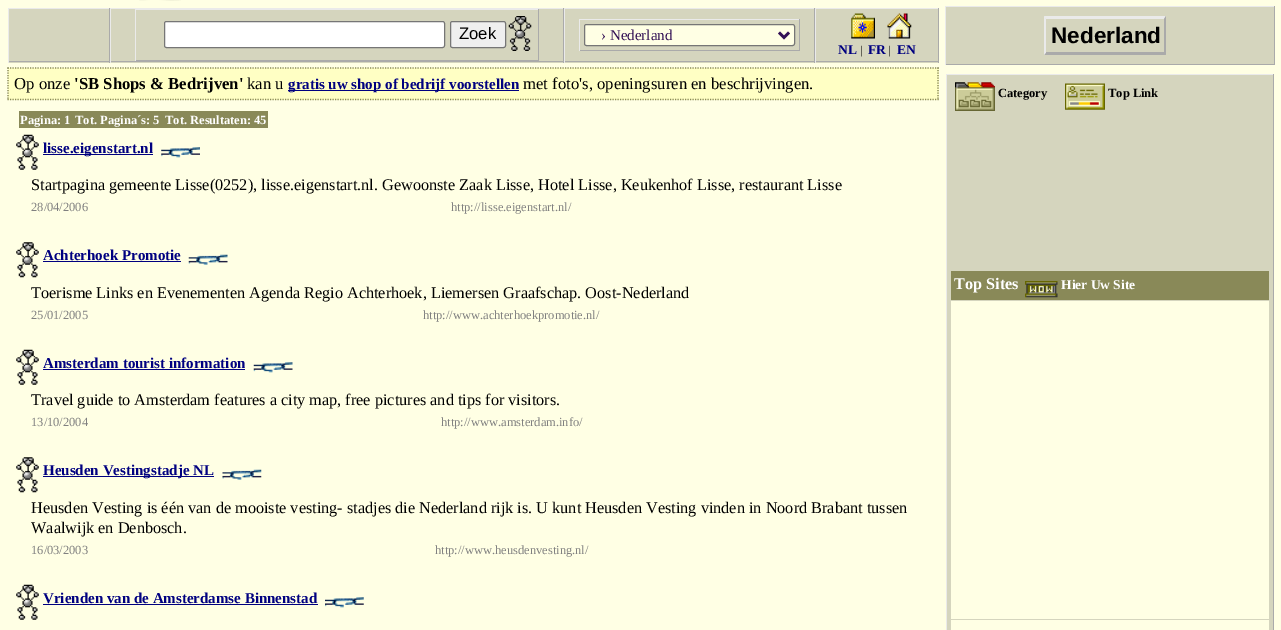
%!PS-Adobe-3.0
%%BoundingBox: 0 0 1281 630
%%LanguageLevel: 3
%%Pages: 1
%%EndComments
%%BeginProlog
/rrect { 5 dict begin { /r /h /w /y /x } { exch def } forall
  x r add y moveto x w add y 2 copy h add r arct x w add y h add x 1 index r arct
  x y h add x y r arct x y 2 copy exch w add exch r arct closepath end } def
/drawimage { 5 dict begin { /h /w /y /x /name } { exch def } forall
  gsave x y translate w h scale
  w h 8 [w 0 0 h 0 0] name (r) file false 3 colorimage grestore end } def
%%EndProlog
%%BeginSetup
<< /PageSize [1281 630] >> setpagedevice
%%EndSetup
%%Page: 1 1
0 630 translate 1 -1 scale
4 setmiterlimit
1 1 0.894 setrgbcolor
0 0 1281 630 rectfill
(images/1.raw) 139 0 42 1 drawimage
0.835 0.835 0.745 setrgbcolor
9 9 929 54 rectfill
0.918 setgray
8 8 931 1 rectfill
0.667 setgray
109 8 1 55 rectfill
8 61 102 1 rectfill
0.918 setgray
8 8 1 55 rectfill
0.667 setgray
563 8 1 55 rectfill
110 61 454 1 rectfill
0.918 setgray
110 8 1 55 rectfill
135 9 404 1 rectfill
0.667 setgray
538 9 1 52 rectfill
135 60 404 1 rectfill
0.918 setgray
135 9 1 52 rectfill
1 setgray
164.5 21.5 280 26 2 rrect gsave fill grestore
0.463 setgray
stroke
0.937 setgray
450.5 21.5 55 26 2 rrect gsave fill grestore
0.463 setgray
stroke
(images/2.raw) 508 16 24 35 drawimage
0.667 setgray
814 8 1 55 rectfill
564 61 251 1 rectfill
0.918 setgray
564 8 1 55 rectfill
579 19 221 1 rectfill
0.667 setgray
799 19 1 32 rectfill
579 50 221 1 rectfill
0.918 setgray
579 19 1 32 rectfill
1 1 0.894 setrgbcolor
584.5 24.5 210 21 2 rrect gsave fill grestore
0.463 setgray
stroke
0.2 0.067 0.333 setrgbcolor
2.5 setlinewidth
newpath 779 32.5 moveto 784 37.5 lineto 789 32.5 lineto stroke
0.667 setgray
938 8 1 55 rectfill
815 61 124 1 rectfill
0.918 setgray
815 8 1 55 rectfill
(images/3.raw) 851 13 24 26 drawimage
(images/4.raw) 887 13 25 26 drawimage
1 1 0.769 setrgbcolor
8 68 931 32 rectfill
0.537 0.537 0.345 setrgbcolor
1.2 setlinewidth
[1.25 1.25] 0 setdash
newpath 7.5 68 moveto 939 68 lineto stroke
newpath 938 67.5 moveto 938 100 lineto stroke
newpath 7.5 99.5 moveto 939 99.5 lineto stroke
newpath 8 67.5 moveto 8 100 lineto stroke
0 0 0.502 setrgbcolor
288 90 231 1 rectfill
0.537 0.537 0.345 setrgbcolor
19 111 249 17 rectfill
(images/5.raw) 16 134 23 36 drawimage
0 0 0.502 setrgbcolor
43 154 110 1 rectfill
(images/6.raw) 161 147 39 11 drawimage
(images/7.raw) 16 242 23 36 drawimage
43 261 138 1 rectfill
(images/8.raw) 188 254 40 11 drawimage
(images/5.raw) 16 349 23 36 drawimage
43 369 202 1 rectfill
(images/9.raw) 253 362 40 11 drawimage
(images/7.raw) 16 457 23 36 drawimage
43 476 171 1 rectfill
(images/10.raw) 222 469 40 11 drawimage
(images/5.raw) 16 584 23 36 drawimage
43 604 275 1 rectfill
(images/11.raw) 325 597 39 11 drawimage
0.835 0.835 0.745 setrgbcolor
946 7 328 57 rectfill
0.918 setgray
945 6 330 1 rectfill
0.667 setgray
1274 6 1 59 rectfill
945 64 330 1 rectfill
0.918 setgray
945 6 1 59 rectfill
newpath 1044 16 moveto 1166 16 lineto 1164 19 lineto 1046 19 lineto closepath fill
0.667 setgray
newpath 1166 16 moveto 1166 55 lineto 1164 52.5 lineto 1164 19 lineto closepath fill
newpath 1166 55 moveto 1044 55 lineto 1046 52 lineto 1164 52 lineto closepath fill
0.918 setgray
newpath 1044 55 moveto 1044 16 lineto 1046 19 lineto 1046 52.5 lineto closepath fill
0.835 0.835 0.745 setrgbcolor
947 75 326 555 rectfill
0.918 setgray
946 74 328 1 rectfill
0.667 setgray
1273 74 1 556 rectfill
0.918 setgray
946 74 1 556 rectfill
(images/12.raw) 955 82 40 29 drawimage
(images/13.raw) 1065 83 40 27 drawimage
0.537 0.537 0.345 setrgbcolor
951 271 318 29 rectfill
(images/14.raw) 1025 281 33 17 drawimage
1 1 0.894 setrgbcolor
951 301 318 318 rectfill
951 620 318 10 rectfill
/LiberationSans-Regular [16.7 0 0 -16.7 0 0] selectfont
0 setgray
459 39 moveto (Zoek) show
/LiberationSerif-Regular [15 0 0 -15 0 0] selectfont
0.2 0.067 0.333 setrgbcolor
601 40 moveto (› Nederland) show
/LiberationSerif-Bold [13.5 0 0 -13.5 0 0] selectfont
0 0 0.502 setrgbcolor
838 54 moveto (NL) show
/LiberationSerif-Regular [12 0 0 -12 0 0] selectfont
0 setgray
860 54 moveto (|) show
/LiberationSerif-Bold [13.5 0 0 -13.5 0 0] selectfont
0 0 0.502 setrgbcolor
868 54 moveto (FR) show
/LiberationSerif-Regular [12 0 0 -12 0 0] selectfont
0 setgray
888 54 moveto (|) show
/LiberationSerif-Bold [13.5 0 0 -13.5 0 0] selectfont
0 0 0.502 setrgbcolor
897 54 moveto (EN) show
/LiberationSerif-Regular [16.7 0 0 -16.7 0 0] selectfont
0 setgray
14 89 moveto (Op onze) show
/LiberationSerif-Bold [16.7 0 0 -16.7 0 0] selectfont
74 89 moveto ('SB Shops & Bedrijven') show
/LiberationSerif-Regular [16.7 0 0 -16.7 0 0] selectfont
247 89 moveto (kan u) show
/LiberationSerif-Bold [15 0 0 -15 0 0] selectfont
0 0 0.502 setrgbcolor
288 89 moveto (gratis uw shop of bedrijf voorstellen) show
/LiberationSerif-Regular [16.7 0 0 -16.7 0 0] selectfont
0 setgray
523 89 moveto (met foto's, openingsuren en beschrijvingen.) show
/LiberationSerif-Bold [12.5 0 0 -12.5 0 0] selectfont
1 setgray
20 124 moveto (Pagina: 1) show
75 124 moveto (Tot. Pagina´s: 5) show
165 124 moveto (Tot. Resultaten: 45) show
/LiberationSerif-Bold [15 0 0 -15 0 0] selectfont
0 0 0.502 setrgbcolor
43 153 moveto (lisse.eigenstart.nl) show
/LiberationSerif-Regular [16.25 0 0 -16.25 0 0] selectfont
0 setgray
31 190 moveto (Startpagina gemeente Lisse\(0252\), lisse.eigenstart.nl. Gewoonste Zaak Lisse, Hotel Lisse, Keukenhof Lisse, restaurant Lisse) show
/LiberationSerif-Regular [12.5 0 0 -12.5 0 0] selectfont
0.502 setgray
31 211 moveto (28/04/2006) show
451 211 moveto (http://lisse.eigenstart.nl/) show
/LiberationSerif-Bold [15 0 0 -15 0 0] selectfont
0 0 0.502 setrgbcolor
43 260 moveto (Achterhoek Promotie) show
/LiberationSerif-Regular [16.25 0 0 -16.25 0 0] selectfont
0 setgray
31 298 moveto (Toerisme Links en Evenementen Agenda Regio Achterhoek, Liemersen Graafschap. Oost-Nederland) show
/LiberationSerif-Regular [12.5 0 0 -12.5 0 0] selectfont
0.502 setgray
31 319 moveto (25/01/2005) show
423 319 moveto (http://www.achterhoekpromotie.nl/) show
/LiberationSerif-Bold [15 0 0 -15 0 0] selectfont
0 0 0.502 setrgbcolor
43 368 moveto (Amsterdam tourist information) show
/LiberationSerif-Regular [16.25 0 0 -16.25 0 0] selectfont
0 setgray
31 405 moveto (Travel guide to Amsterdam features a city map, free pictures and tips for visitors.) show
/LiberationSerif-Regular [12.5 0 0 -12.5 0 0] selectfont
0.502 setgray
31 426 moveto (13/10/2004) show
441 426 moveto (http://www.amsterdam.info/) show
/LiberationSerif-Bold [15 0 0 -15 0 0] selectfont
0 0 0.502 setrgbcolor
43 475 moveto (Heusden Vestingstadje NL) show
/LiberationSerif-Regular [16.25 0 0 -16.25 0 0] selectfont
0 setgray
31 513 moveto (Heusden Vesting is één van de mooiste vesting- stadjes die Nederland rijk is. U kunt Heusden Vesting vinden in Noord Brabant tussen) show
31 533 moveto (Waalwijk en Denbosch.) show
/LiberationSerif-Regular [12.5 0 0 -12.5 0 0] selectfont
0.502 setgray
31 554 moveto (16/03/2003) show
435 554 moveto (http://www.heusdenvesting.nl/) show
/LiberationSerif-Bold [15 0 0 -15 0 0] selectfont
0 0 0.502 setrgbcolor
43 603 moveto (Vrienden van de Amsterdamse Binnenstad) show
/LiberationSans-Bold [22.5 0 0 -22.5 0 0] selectfont
0 setgray
1051 43 moveto (Nederland) show
/LiberationSerif-Bold [12.5 0 0 -12.5 0 0] selectfont
998 97 moveto (Category) show
1108 97 moveto (Top Link) show
/LiberationSerif-Bold [16.25 0 0 -16.25 0 0] selectfont
1 setgray
954 289 moveto (Top Sites) show
/LiberationSerif-Bold [13.5 0 0 -13.5 0 0] selectfont
1061 289 moveto (Hier Uw Site) show
showpage
%%EOF
